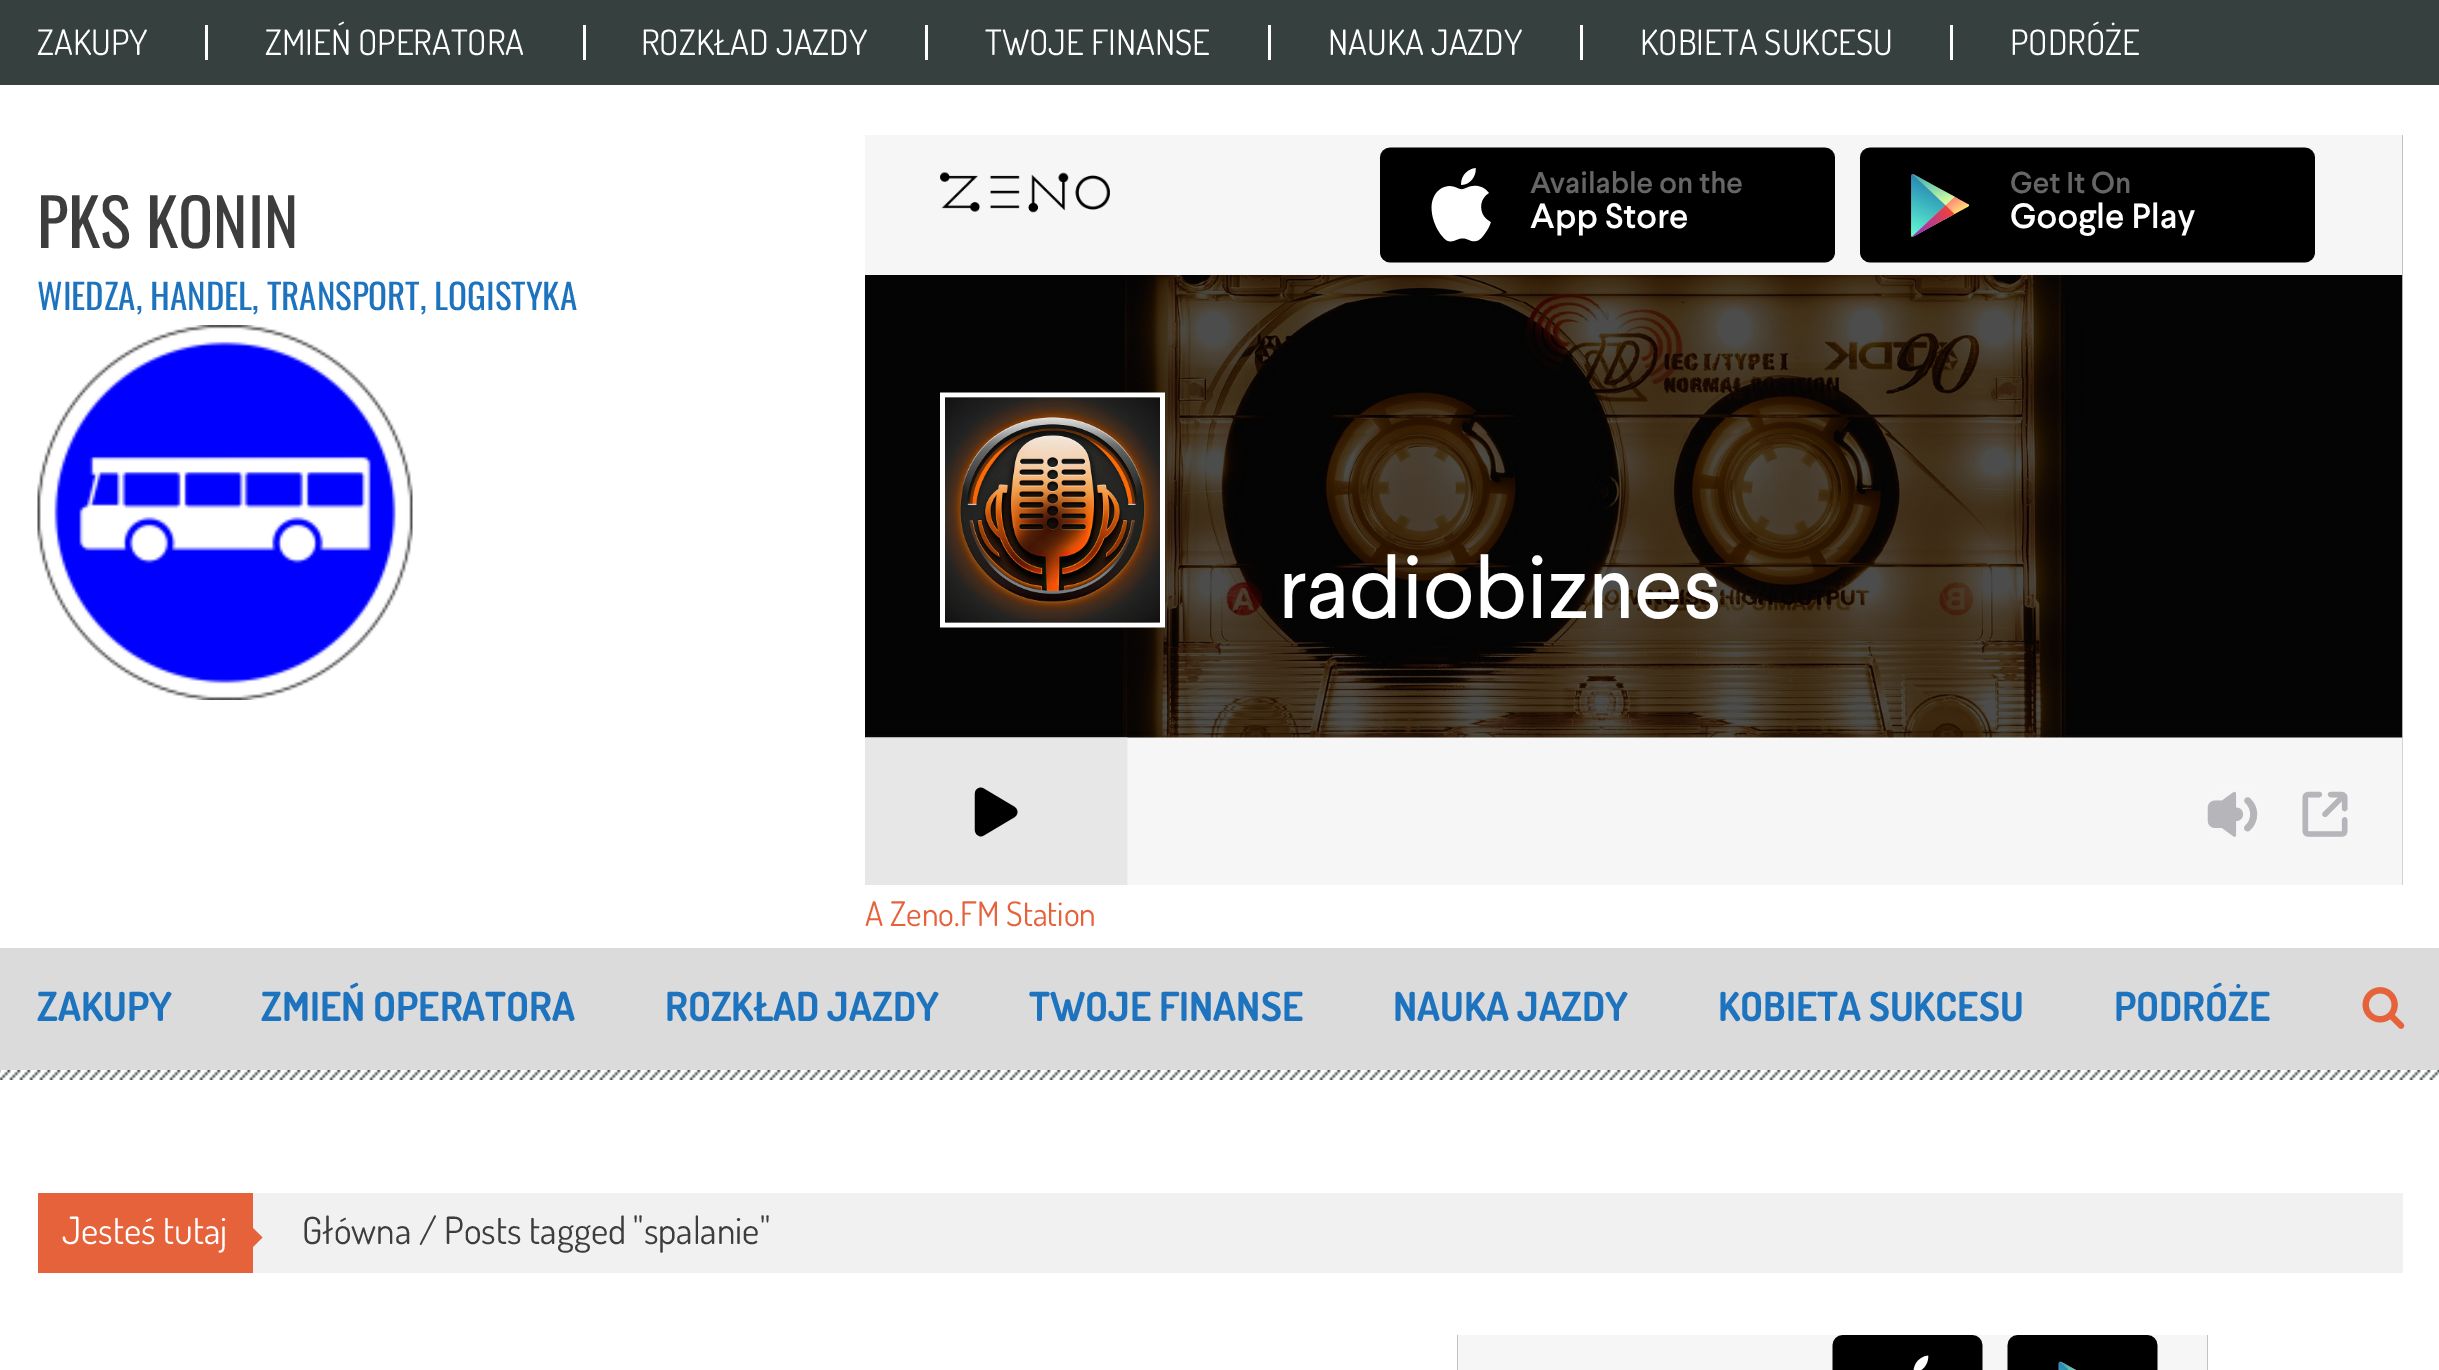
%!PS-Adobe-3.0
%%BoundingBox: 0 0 2439 1370
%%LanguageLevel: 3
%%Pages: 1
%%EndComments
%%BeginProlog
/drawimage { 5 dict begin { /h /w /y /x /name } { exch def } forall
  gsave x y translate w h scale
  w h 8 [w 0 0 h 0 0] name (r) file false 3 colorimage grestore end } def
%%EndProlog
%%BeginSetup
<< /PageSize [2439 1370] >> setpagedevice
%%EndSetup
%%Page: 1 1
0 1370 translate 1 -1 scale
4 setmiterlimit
1 setgray
0 0 2439 1370 rectfill
0.212 0.251 0.247 setrgbcolor
0 0 2439 85 rectfill
1 setgray
205 25 3 35 rectfill
583 25 3 35 rectfill
925 25 3 35 rectfill
1268 25 3 35 rectfill
1580 25 3 35 rectfill
1950 25 3 35 rectfill
(images/1.raw) 37 325 376 375 drawimage
(images/2.raw) 865 135 1538 750 drawimage
0.859 setgray
0 948 2439 122 rectfill
(images/3.raw) 0 1070 2439 10 drawimage
(images/4.raw) 2362 987 43 42 drawimage
0.945 setgray
253 1193 2150 80 rectfill
0.898 0.384 0.231 setrgbcolor
38 1193 215 80 rectfill
newpath 250 1250 moveto 250 1225 lineto 262.5 1237.5 lineto closepath fill
(images/5.raw) 1457 1335 751 35 drawimage
/Dosis-Regular [35 0 0 -35 0 0] selectfont
1 setgray
37 55 moveto (ZAKUPY) show
265 55 moveto (ZMIEŃ OPERATORA) show
641 55 moveto (ROZKŁAD JAZDY) show
985 55 moveto (TWOJE FINANSE) show
1328 55 moveto (NAUKA JAZDY) show
1640 55 moveto (KOBIETA SUKCESU) show
2010 55 moveto (PODRÓŻE) show
/Oswald-Regular [65 0 0 -65 0 0] selectfont
0.239 setgray
37 248 moveto (PKS KONIN) show
/Oswald-Regular [35 0 0 -35 0 0] selectfont
0.118 0.451 0.745 setrgbcolor
37 310 moveto (WIEDZA, HANDEL, TRANSPORT, LOGISTYKA) show
/Dosis-Regular [33.75 0 0 -33.75 0 0] selectfont
0.898 0.384 0.231 setrgbcolor
865 926 moveto (A Zeno.FM Station) show
/Dosis-Bold [40 0 0 -40 0 0] selectfont
0.118 0.451 0.745 setrgbcolor
37 1021 moveto (ZAKUPY) show
261 1021 moveto (ZMIEŃ OPERATORA) show
665 1021 moveto (ROZKŁAD JAZDY) show
1029 1021 moveto (TWOJE FINANSE) show
1393 1021 moveto (NAUKA JAZDY) show
1718 1021 moveto (KOBIETA SUKCESU) show
2114 1021 moveto (PODRÓŻE) show
/Dosis-Regular [37.5 0 0 -37.5 0 0] selectfont
1 setgray
62 1244 moveto (Jesteś tutaj) show
0.239 setgray
302 1244 moveto (Główna / Posts tagged "spalanie") show
showpage
%%EOF
